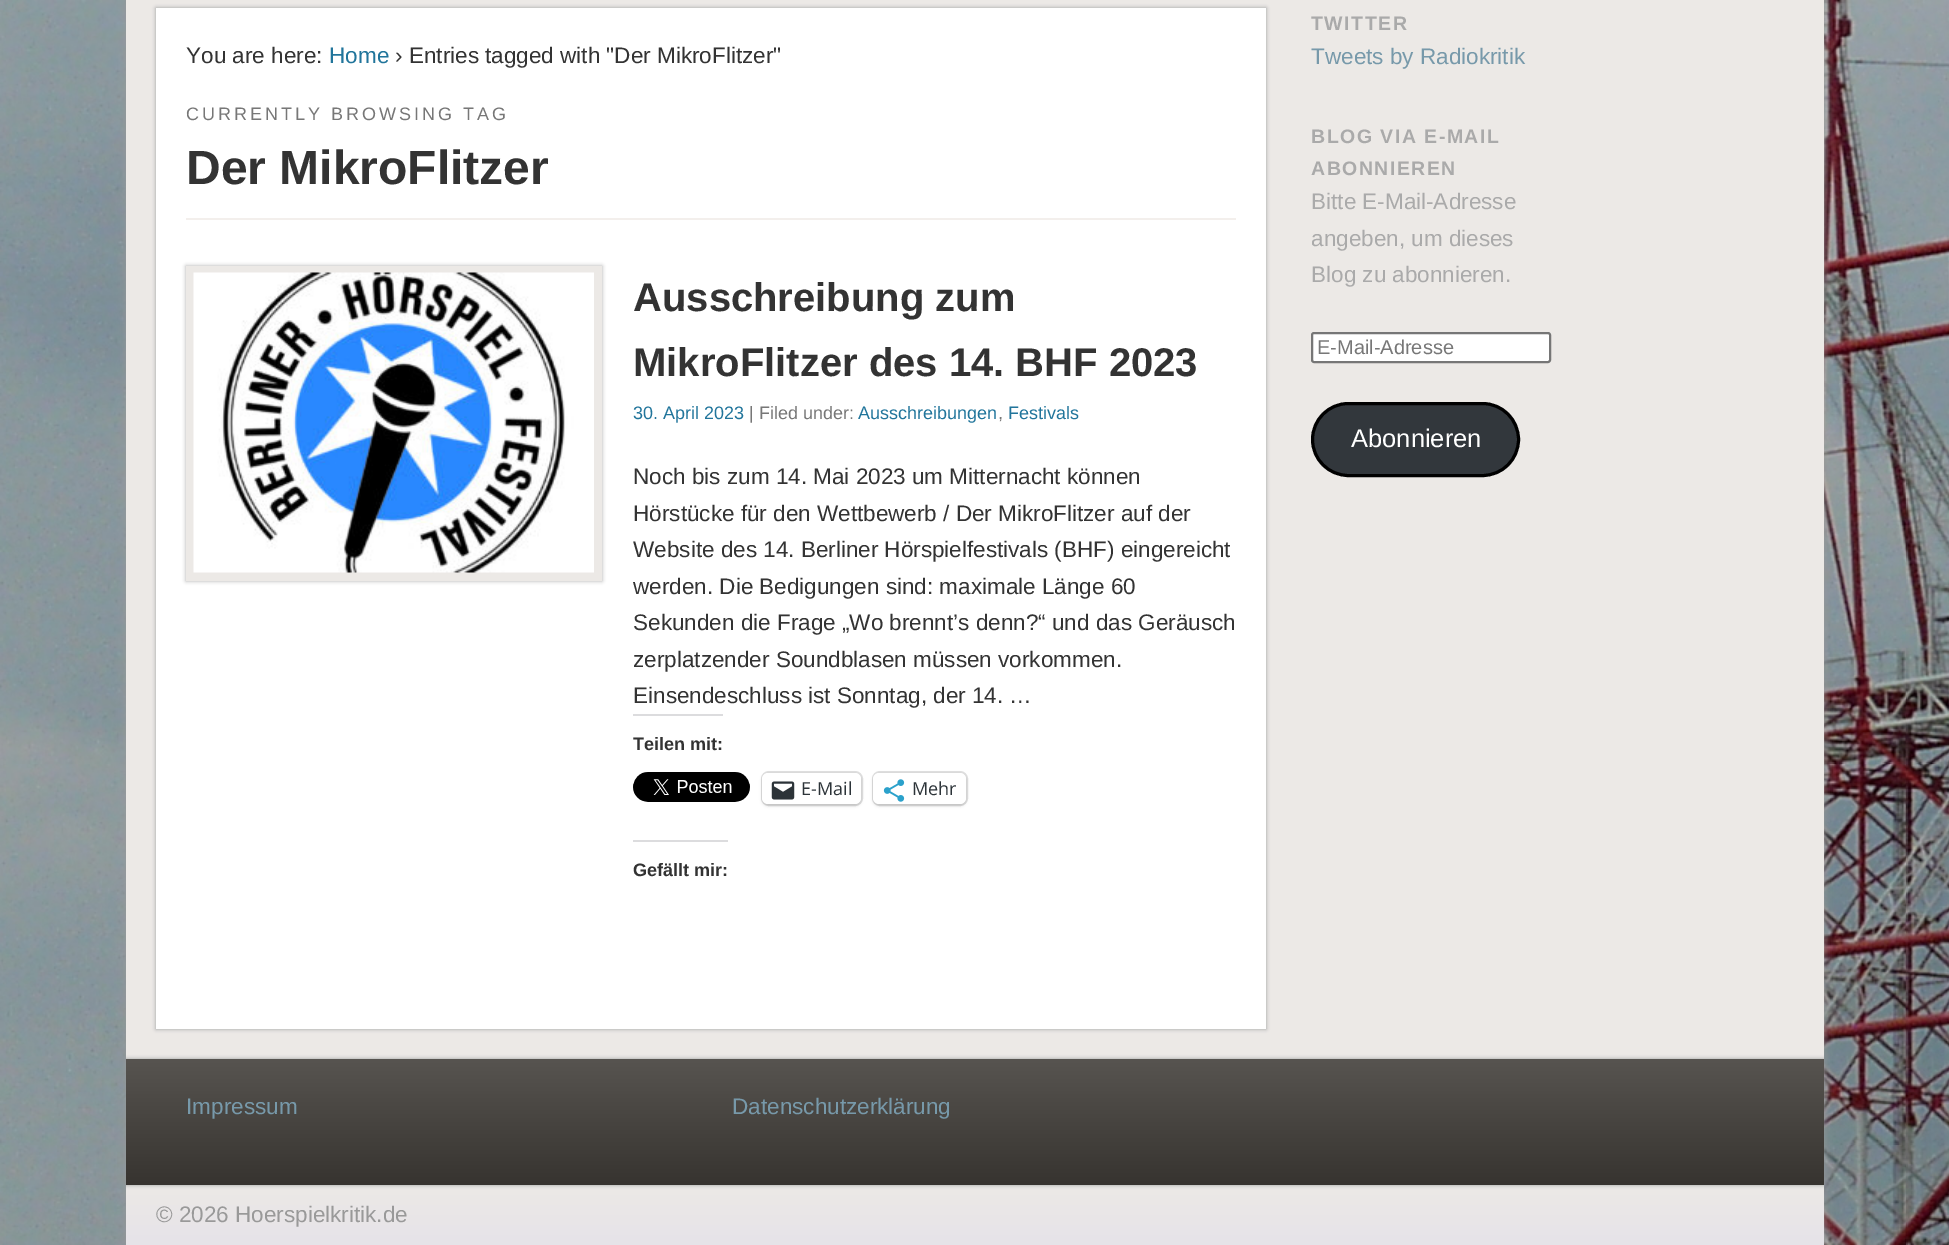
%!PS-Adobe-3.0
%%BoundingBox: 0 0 1949 1245
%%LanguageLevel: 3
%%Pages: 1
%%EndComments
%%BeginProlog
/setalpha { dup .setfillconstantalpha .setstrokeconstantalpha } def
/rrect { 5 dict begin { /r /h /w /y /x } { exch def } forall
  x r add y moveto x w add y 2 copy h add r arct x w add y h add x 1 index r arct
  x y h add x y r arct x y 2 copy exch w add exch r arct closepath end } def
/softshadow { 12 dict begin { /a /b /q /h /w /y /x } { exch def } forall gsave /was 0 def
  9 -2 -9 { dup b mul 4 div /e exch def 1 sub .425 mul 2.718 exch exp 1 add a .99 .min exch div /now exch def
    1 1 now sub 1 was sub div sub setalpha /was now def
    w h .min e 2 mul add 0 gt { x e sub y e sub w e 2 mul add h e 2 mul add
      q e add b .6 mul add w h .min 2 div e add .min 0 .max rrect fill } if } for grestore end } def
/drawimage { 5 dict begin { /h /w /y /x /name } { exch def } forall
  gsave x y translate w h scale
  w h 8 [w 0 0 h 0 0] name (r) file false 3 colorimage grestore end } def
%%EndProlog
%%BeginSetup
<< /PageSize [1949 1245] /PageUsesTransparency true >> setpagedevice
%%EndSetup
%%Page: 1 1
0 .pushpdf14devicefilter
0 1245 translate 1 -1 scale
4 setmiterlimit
1 setgray
0 0 1949 1245 rectfill
(images/1.raw) 0 0 1949 1245 drawimage
0.6 setgray
126 -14 1698 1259 0 4.5 1 softshadow
0.925 0.914 0.902 setrgbcolor
126 0 1698 1059 rectfill
0.6 setgray
156 8 1110 1021 0 2 1 softshadow
1 setgray
156 8 1110 1021 rectfill
0.953 0.937 0.925 setrgbcolor
186 218 1050 2 rectfill
0.667 setgray
186 266 416 315 0 2 1 softshadow
0.925 0.914 0.902 setrgbcolor
186 266 416 315 rectfill
(images/2.raw) 193 272 401 301 drawimage
0.863 0.863 0.871 setrgbcolor
633 714 90 2 rectfill
(images/3.raw) 633 772 117 30 drawimage
0.878 setgray
2 setlinewidth
762 772 100 33 7 rrect stroke
0 setgray
762 774 99 32 6 1.5 0.12 softshadow
1 setgray
762 773 99 31 6 rrect fill
(images/4.raw) 771 781 24 19 drawimage
0.878 setgray
873 772 94 33 7 rrect stroke
0 setgray
873 774 93 32 6 1.5 0.12 softshadow
1 setgray
873 773 93 31 6 rrect fill
(images/5.raw) 883 779 22 23 drawimage
0.863 0.863 0.871 setrgbcolor
633 840 95 2 rectfill
1 setgray
1312 333 238 29 2 rrect gsave fill grestore
0.463 setgray
stroke
0.196 0.216 0.235 setrgbcolor
1312.5 403.5 206 72 36 rrect gsave fill grestore
0 setgray
3 setlinewidth
stroke
gsave newpath 126 1185 moveto 1824 1185 lineto 1824 1245 lineto 126 1245 lineto closepath clip newpath
<< /ShadingType 2 /ColorSpace /DeviceRGB /Coords [975 1185 975 1245] /Extend [true true] /Function << /FunctionType 2 /Domain [0 1] /C0 [0.925 0.914 0.902] /C1 [0.902 0.89 0.914] /N 1 >> >> shfill grestore
gsave
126 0 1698 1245 rectclip
0.6 setgray
126 1059 1698 126 0 2 1 softshadow
grestore
gsave newpath 126 1059 moveto 1824 1059 lineto 1824 1185 lineto 126 1185 lineto closepath clip newpath
<< /ShadingType 2 /ColorSpace /DeviceRGB /Coords [975 1059 975 1185] /Extend [true true] /Function << /FunctionType 2 /Domain [0 1] /C0 [0.341 0.329 0.314] /C1 [0.216 0.204 0.188] /N 1 >> >> shfill grestore
/LiberationSans-Regular [22.5 0 0 -22.5 0 0] selectfont
0.2 setgray
186 63 moveto (You are here:) show
0.129 0.459 0.608 setrgbcolor
329 63 moveto (Home) show
0.2 setgray
395 63 moveto (› Entries tagged with "Der MikroFlitzer") show
/LiberationSans-Regular [18 0 0 -18 0 0] selectfont
0.467 setgray
186 120 moveto 3 0 (CURRENTLY BROWSING TAG) ashow
/LiberationSans-Bold [48 0 0 -48 0 0] selectfont
0.2 setgray
186 184 moveto (Der MikroFlitzer) show
/LiberationSans-Bold [40 0 0 -40 0 0] selectfont
633 311 moveto (Ausschreibung zum) show
633 376 moveto (MikroFlitzer des 14. BHF 2023) show
/LiberationSans-Regular [18 0 0 -18 0 0] selectfont
0.129 0.459 0.608 setrgbcolor
633 419 moveto (30. April 2023) show
0.467 setgray
749 419 moveto (| Filed under:) show
0.129 0.459 0.608 setrgbcolor
858 419 moveto (Ausschreibungen) show
0.467 setgray
998 419 moveto (,) show
0.129 0.459 0.608 setrgbcolor
1008 419 moveto (Festivals) show
/LiberationSans-Regular [22.5 0 0 -22.5 0 0] selectfont
0.2 setgray
633 484 moveto (Noch bis zum 14. Mai 2023 um Mitternacht können) show
633 521 moveto (Hörstücke für den Wettbewerb / Der MikroFlitzer auf der) show
633 557 moveto (Website des 14. Berliner Hörspielfestivals \(BHF\) eingereicht) show
633 594 moveto (werden. Die Bedigungen sind: maximale Länge 60) show
633 630 moveto (Sekunden die Frage „Wo brennt’s denn?“ und das Geräusch) show
633 667 moveto (zerplatzender Soundblasen müssen vorkommen.) show
633 703 moveto (Einsendeschluss ist Sonntag, der 14. …) show
/LiberationSans-Bold [18 0 0 -18 0 0] selectfont
633 750 moveto (Teilen mit:) show
/OpenSans-Regular [18 0 0 -18 0 0] selectfont
0.173 0.2 0.22 setrgbcolor
801 795 moveto (E-Mail) show
912 795 moveto (Mehr) show
/LiberationSans-Bold [18 0 0 -18 0 0] selectfont
0.2 setgray
633 876 moveto (Gefällt mir:) show
/LiberationSans-Bold [19.5 0 0 -19.5 0 0] selectfont
0.667 setgray
1311 30 moveto 1.5 0 (TWITTER) ashow
/LiberationSans-Regular [22.5 0 0 -22.5 0 0] selectfont
0.467 0.6 0.667 setrgbcolor
1311 64 moveto (Tweets by Radiokritik) show
/LiberationSans-Bold [19.5 0 0 -19.5 0 0] selectfont
0.667 setgray
1311 143 moveto 1.5 0 (BLOG VIA E-MAIL) ashow
1311 175 moveto 1.5 0 (ABONNIEREN) ashow
/LiberationSans-Regular [22.5 0 0 -22.5 0 0] selectfont
1311 209 moveto (Bitte E-Mail-Adresse) show
1311 246 moveto (angeben, um dieses) show
1311 282 moveto (Blog zu abonnieren.) show
/LiberationSans-Regular [20 0 0 -20 0 0] selectfont
0.467 setgray
1317 354 moveto (E-Mail-Adresse) show
/LiberationSans-Regular [25.5 0 0 -25.5 0 0] selectfont
1 setgray
1351 447 moveto (Abonnieren) show
/LiberationSans-Regular [22.5 0 0 -22.5 0 0] selectfont
0.467 0.6 0.667 setrgbcolor
186 1114 moveto (Impressum) show
732 1114 moveto (Datenschutzerklärung) show
0.6 setgray
156 1222 moveto (© 2026 Hoerspielkritik.de) show
.poppdf14devicefilter showpage
%%EOF
